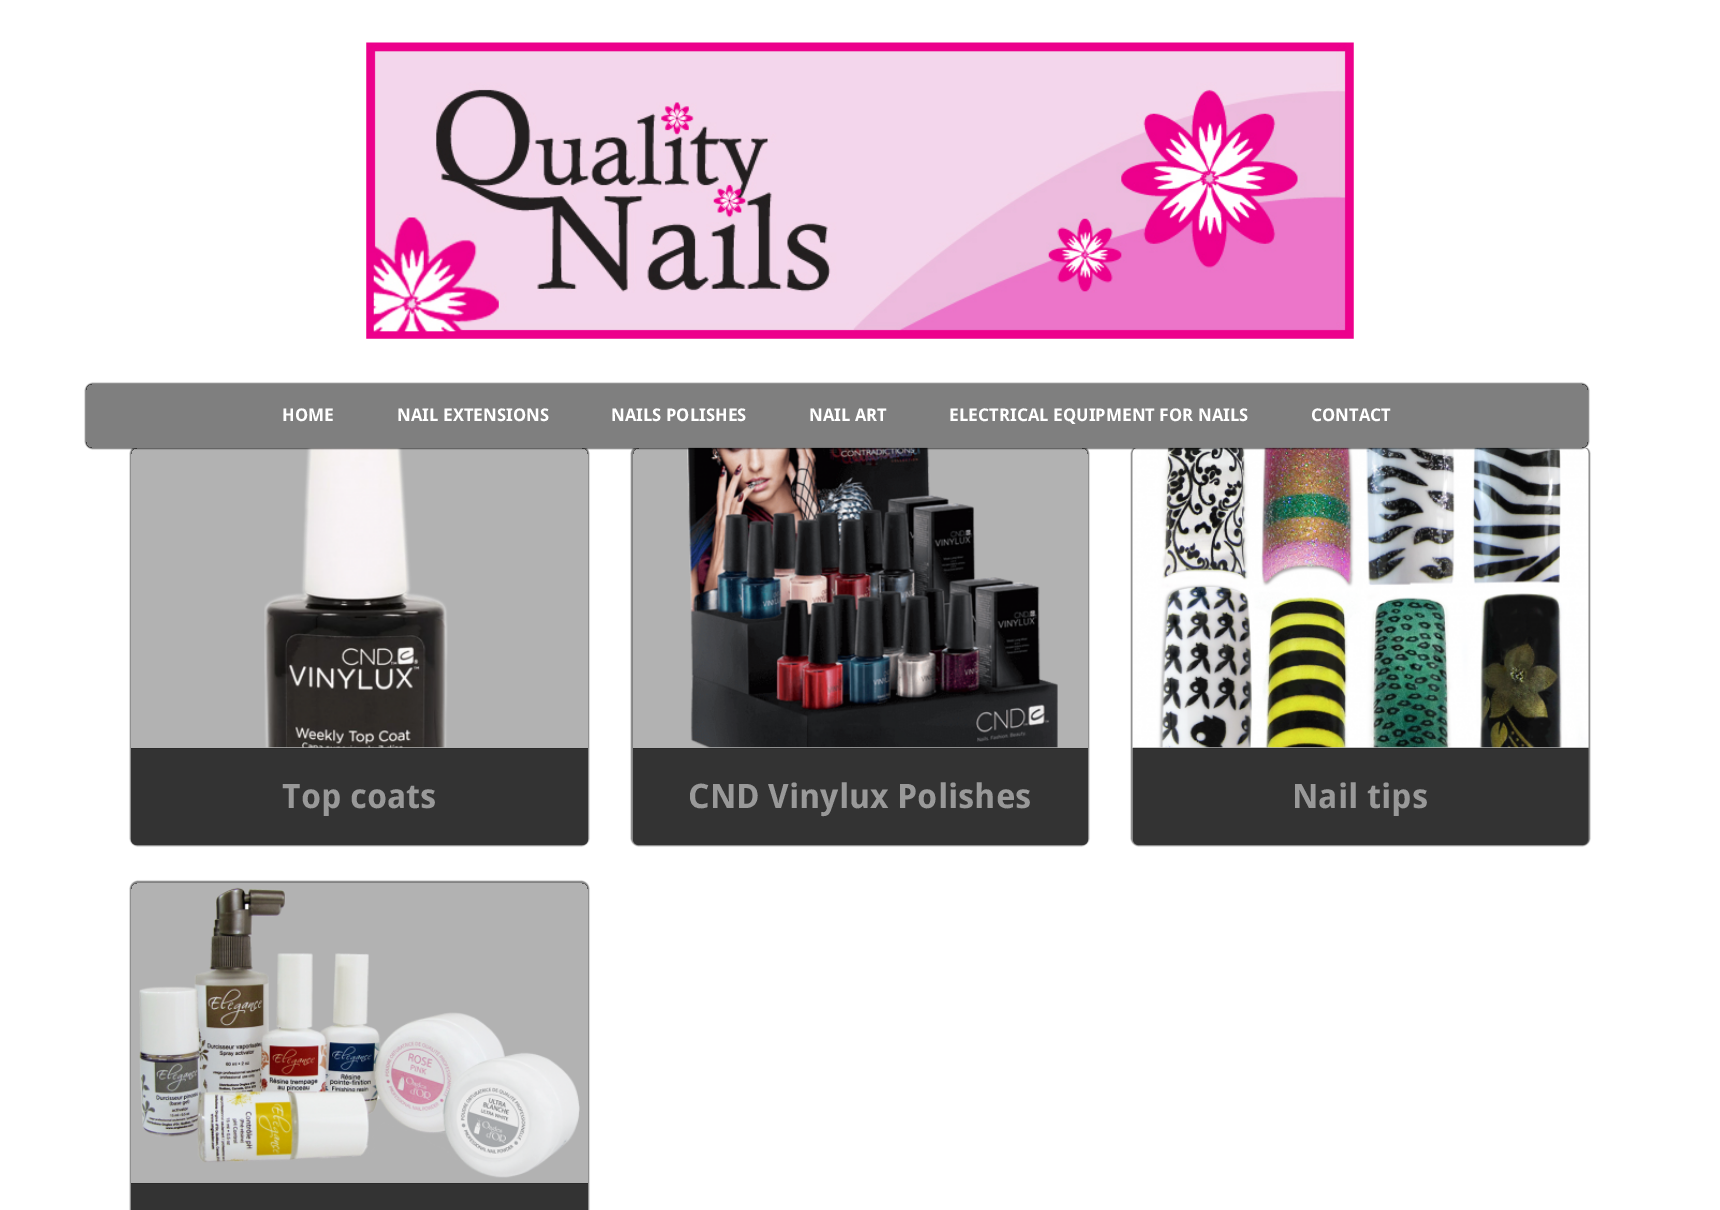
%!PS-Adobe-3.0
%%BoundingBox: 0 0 1720 1210
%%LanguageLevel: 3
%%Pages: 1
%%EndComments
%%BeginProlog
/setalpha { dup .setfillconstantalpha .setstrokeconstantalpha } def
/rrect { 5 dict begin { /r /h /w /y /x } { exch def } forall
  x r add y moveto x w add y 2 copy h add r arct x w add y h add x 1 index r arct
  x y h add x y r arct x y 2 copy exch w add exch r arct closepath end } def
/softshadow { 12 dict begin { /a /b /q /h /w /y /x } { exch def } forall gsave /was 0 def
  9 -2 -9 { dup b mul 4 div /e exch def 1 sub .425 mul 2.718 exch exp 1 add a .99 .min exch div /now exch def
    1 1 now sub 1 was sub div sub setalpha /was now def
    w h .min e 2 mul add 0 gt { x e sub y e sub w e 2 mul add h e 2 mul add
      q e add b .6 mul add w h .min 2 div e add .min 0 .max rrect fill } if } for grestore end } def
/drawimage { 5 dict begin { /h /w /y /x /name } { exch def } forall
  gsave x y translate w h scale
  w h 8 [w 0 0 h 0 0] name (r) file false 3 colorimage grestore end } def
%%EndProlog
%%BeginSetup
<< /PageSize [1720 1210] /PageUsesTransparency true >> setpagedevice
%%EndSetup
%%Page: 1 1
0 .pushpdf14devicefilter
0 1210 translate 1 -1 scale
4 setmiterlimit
1 setgray
0 0 1720 1210 rectfill
(images/1.raw) 366 42 988 297 drawimage
gsave
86 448 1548 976 rectclip
newpath 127 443 moveto 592 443 lineto 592 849 lineto 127 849 lineto closepath 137 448 moveto 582 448 lineto 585.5 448 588 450.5 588 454 curveto 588 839 lineto 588 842.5 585.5 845 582 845 curveto 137 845 lineto 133.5 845 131 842.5 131 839 curveto 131 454 lineto 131 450.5 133.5 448 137 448 curveto closepath eoclip newpath
0 setgray
130 446 459 400 8 0.5 0.5 softshadow
grestore
0.3 setalpha
0 setgray
131 448 457 397 6 rrect fill
1 setalpha
(images/2.raw) 264 448 184 300 drawimage
gsave
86 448 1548 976 rectclip
newpath 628 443 moveto 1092 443 lineto 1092 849 lineto 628 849 lineto closepath 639 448 moveto 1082 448 lineto 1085.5 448 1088 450.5 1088 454 curveto 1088 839 lineto 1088 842.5 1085.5 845 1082 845 curveto 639 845 lineto 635.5 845 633 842.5 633 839 curveto 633 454 lineto 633 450.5 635.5 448 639 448 curveto closepath eoclip newpath
631 446 458 400 8 0.5 0.5 softshadow
grestore
0.3 setalpha
633 448 455 397 6 rrect fill
1 setalpha
(images/3.raw) 687 447 371 301 drawimage
gsave
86 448 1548 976 rectclip
1131 446 459 400 8 0.5 0.5 softshadow
grestore
0.3 setalpha
1133 448 456 397 6 rrect fill
1 setalpha
(images/4.raw) 1132 447 457 301 drawimage
gsave
newpath 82 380 moveto 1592 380 lineto 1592 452 lineto 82 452 lineto closepath 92 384 moveto 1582 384 lineto 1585.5 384 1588 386.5 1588 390 curveto 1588 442 lineto 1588 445.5 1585.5 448 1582 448 curveto 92 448 lineto 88.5 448 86 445.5 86 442 curveto 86 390 lineto 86 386.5 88.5 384 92 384 curveto closepath eoclip newpath
85 383 1504 66 8 0.5 0.5 softshadow
grestore
0.5 setalpha
86 384 1502 64 6 rrect fill
1 setalpha
0.2 setgray
newpath 131 748 moveto 588 748 lineto 588 839 lineto 588 842.5 585.5 845 582 845 curveto 137 845 lineto 133.5 845 131 842.5 131 839 curveto closepath fill
0.169 setgray
131 748 457 1 rectfill
0.2 setgray
newpath 633 748 moveto 1088 748 lineto 1088 839 lineto 1088 842.5 1085.5 845 1082 845 curveto 639 845 lineto 635.5 845 633 842.5 633 839 curveto closepath fill
0.169 setgray
633 748 455 1 rectfill
0.2 setgray
newpath 1133 748 moveto 1588 748 lineto 1588 839 lineto 1588 842.5 1585.5 845 1582 845 curveto 1139 845 lineto 1135.5 845 1133 842.5 1133 839 curveto closepath fill
0.169 setgray
1133 748 455 1 rectfill
gsave
newpath 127 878 moveto 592 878 lineto 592 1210 lineto 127 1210 lineto closepath 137 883 moveto 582 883 lineto 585.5 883 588 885.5 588 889 curveto 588 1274 lineto 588 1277.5 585.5 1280 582 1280 curveto 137 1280 lineto 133.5 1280 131 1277.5 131 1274 curveto 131 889 lineto 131 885.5 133.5 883 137 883 curveto closepath eoclip newpath
0 setgray
130 881 459 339 8 0.5 0.5 softshadow
grestore
0.3 setalpha
0 setgray
131 883 457 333 6 rrect fill
1 setalpha
(images/5.raw) 139 887 441 291 drawimage
0.2 setgray
131 1184 457 26 rectfill
0.169 setgray
131 1183 457 1 rectfill
/DroidSans-Bold [17.5 0 0 -17.5 0 0] selectfont
1 setgray
282 421 moveto (HOME) show
397 421 moveto (NAIL EXTENSIONS) show
611 421 moveto (NAILS POLISHES) show
809 421 moveto (NAIL ART) show
949 421 moveto (ELECTRICAL EQUIPMENT FOR NAILS) show
1311 421 moveto (CONTACT) show
/DroidSans-Bold [33.75 0 0 -33.75 0 0] selectfont
0.6 setgray
282 808 moveto (Top coats) show
688 808 moveto (CND Vinylux Polishes) show
1292 808 moveto (Nail tips) show
.poppdf14devicefilter showpage
%%EOF
